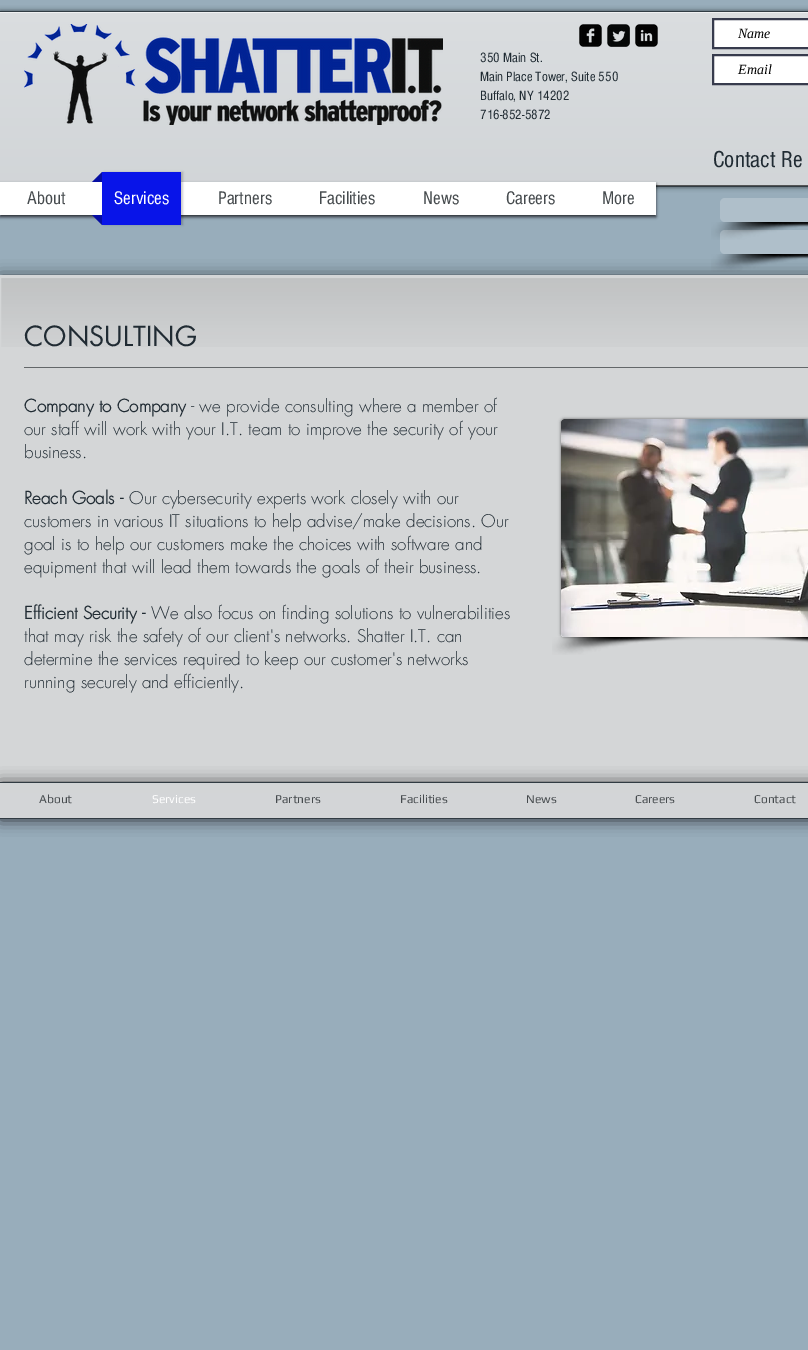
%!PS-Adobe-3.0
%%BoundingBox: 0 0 808 1350
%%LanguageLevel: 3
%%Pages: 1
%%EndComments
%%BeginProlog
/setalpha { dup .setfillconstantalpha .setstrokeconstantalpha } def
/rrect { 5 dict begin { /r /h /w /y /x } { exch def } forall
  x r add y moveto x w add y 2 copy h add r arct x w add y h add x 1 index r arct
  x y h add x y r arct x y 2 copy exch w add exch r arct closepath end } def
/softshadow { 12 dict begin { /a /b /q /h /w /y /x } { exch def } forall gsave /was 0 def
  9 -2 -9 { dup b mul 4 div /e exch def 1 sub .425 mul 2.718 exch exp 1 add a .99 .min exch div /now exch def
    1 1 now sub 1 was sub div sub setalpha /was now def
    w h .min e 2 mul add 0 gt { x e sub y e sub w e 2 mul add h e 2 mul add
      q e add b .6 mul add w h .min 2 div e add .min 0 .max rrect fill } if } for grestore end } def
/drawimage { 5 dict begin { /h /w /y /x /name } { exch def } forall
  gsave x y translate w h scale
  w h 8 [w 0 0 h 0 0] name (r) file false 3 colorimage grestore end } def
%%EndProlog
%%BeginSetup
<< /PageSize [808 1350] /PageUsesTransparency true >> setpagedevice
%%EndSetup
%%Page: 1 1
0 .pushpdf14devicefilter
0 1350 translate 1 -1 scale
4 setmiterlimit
0.596 0.678 0.733 setrgbcolor
0 0 808 1350 rectfill
0 setgray
0 11 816 176 0 2.5 0.6 softshadow
0.804 0.82 0.831 setrgbcolor
0 13 808 172 rectfill
(images/1.raw) 0 13 808 172 drawimage
0.329 0.333 0.337 setrgbcolor
656 185 152 1 rectfill
0.941 0.945 0.949 setrgbcolor
0 12 808 1 rectfill
0.192 0.235 0.263 setrgbcolor
0 11 808 1 rectfill
0.196 0.235 0.263 setrgbcolor
656 186 152 1 rectfill
(images/2.raw) 24 24 419 101 drawimage
(images/3.raw) 579 24 23 23 drawimage
(images/4.raw) 607 24 23 23 drawimage
(images/5.raw) 635 24 23 23 drawimage
1 setgray
newpath 713 19 moveto 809 19 lineto 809 48 lineto 713 48 lineto closepath gsave fill grestore
0.216 0.231 0.302 setrgbcolor
2 setlinewidth
stroke
1 setgray
newpath 713 55 moveto 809 55 lineto 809 84 lineto 713 84 lineto closepath gsave fill grestore
0.216 0.231 0.302 setrgbcolor
stroke
0.686 0.749 0.792 setrgbcolor
720 198 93 24 5 rrect fill
(images/6.raw) 711 222 97 18 drawimage
(images/7.raw) 784 222 24 5 drawimage
0.22 setalpha
1 setgray
720 230 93 24 5 rrect fill
1 setalpha
(images/6.raw) 711 254 97 18 drawimage
(images/7.raw) 784 254 24 5 drawimage
0 setgray
0 184 656 33 0 1.5 0.7 softshadow
1 setgray
0 182 656 33 rectfill
0 setgray
104 172 79 53 0 1 0.2 softshadow
0.024 0.055 0.639 setrgbcolor
newpath 102 182 moveto 92 182 lineto 102 172 lineto closepath 92 215 moveto 102 215 lineto 102 225 lineto closepath fill
0.031 0.078 0.914 setrgbcolor
102 172 79 53 rectfill
0 setgray
0 276 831 507 0 7.5 0.6 softshadow
0.831 0.839 0.843 setrgbcolor
1 276 807 505 rectfill
(images/8.raw) 1 278 807 69 drawimage
1 setlinewidth
0.5 275.5 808 506 rectstroke
0.388 0.404 0.412 setrgbcolor
24 367 784 1 rectfill
0 setgray
561 419 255 218 3 1.5 0.5 softshadow
1 setgray
561 419 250 218 3 rrect fill
(images/9.raw) 561 419 247 218 drawimage
(images/10.raw) 552 637 154 18 drawimage
(images/11.raw) 739 637 69 6 drawimage
gsave
newpath 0 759 moveto 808 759 lineto 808 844 lineto 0 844 lineto closepath 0 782 moveto 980 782 lineto 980 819 lineto 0 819 lineto closepath eoclip newpath
0 setgray
0 783 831 37 0 7.5 0.7 softshadow
grestore
0.85 setalpha
0.831 0.839 0.843 setrgbcolor
0 782 808 36 rectfill
0.9 setalpha
0.125 0.169 0.2 setrgbcolor
0 782 808 1 rectfill
1 setalpha
0.192 0.231 0.263 setrgbcolor
0 818 808 1 rectfill
0.9 setalpha
0.831 0.839 0.843 setrgbcolor
0 783 808 35 rectfill
/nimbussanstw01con-Regular [14 0 0 -14 0 0] selectfont
1 setalpha
0.125 0.169 0.2 setrgbcolor
480 62 moveto (350 Main St.) show
480 81 moveto (Main Place Tower, Suite 550) show
480 100 moveto (Buffalo, NY 14202) show
480 119 moveto (716-852-5872) show
/LiberationSerif-Italic [14 0 0 -14 0 0] selectfont
0 setgray
738 38 moveto (Name) show
738 74 moveto (Email) show
/nimbussanstw01con-Regular [24 0 0 -24 0 0] selectfont
0.125 0.169 0.2 setrgbcolor
713 167 moveto (Contact Re) show
/nimbussanstw01con-Regular [19 0 0 -19 0 0] selectfont
0.275 0.294 0.306 setrgbcolor
27 204 moveto (About) show
1 setgray
114 204 moveto (Services) show
0.275 0.294 0.306 setrgbcolor
218 204 moveto (Partners) show
319 204 moveto (Facilities) show
423 204 moveto (News) show
506 204 moveto (Careers) show
602 204 moveto (More) show
/futura-Regular [27 0 0 -27 0 0] selectfont
0.125 0.169 0.2 setrgbcolor
24 346 moveto (CONSULTING) show
/futura-Bold [17 0 0 -17 0 0] selectfont
24 412 moveto (Company to Company) show
/futura-Light [17 0 0 -17 0 0] selectfont
191 412 moveto (- we provide consulting where a member of) show
24 435 moveto (our staff will work with your I.T. team to improve the security of your) show
24 458 moveto (business.) show
/futura-Bold [17 0 0 -17 0 0] selectfont
24 504 moveto (Reach Goals -) show
/futura-Light [17 0 0 -17 0 0] selectfont
129 504 moveto (Our cybersecurity experts work closely with our) show
24 527 moveto (customers in various IT situations to help advise/make decisions. Our) show
24 550 moveto (goal is to help our customers make the choices with software and) show
24 573 moveto (equipment that will lead them towards the goals of their business.) show
/futura-Bold [17 0 0 -17 0 0] selectfont
24 619 moveto (Efficient Security -) show
/futura-Light [17 0 0 -17 0 0] selectfont
151 619 moveto (We also focus on finding solutions to vulnerabilities) show
24 642 moveto (that may risk the safety of our client's networks. Shatter I.T. can) show
24 665 moveto (determine the services required to keep our customer's networks) show
24 688 moveto (running securely and efficiently.) show
/Play-Regular [12 0 0 -12 0 0] selectfont
0.275 0.294 0.306 setrgbcolor
39 803 moveto (About) show
1 setgray
152 803 moveto (Services) show
0.275 0.294 0.306 setrgbcolor
275 803 moveto (Partners) show
400 803 moveto (Facilities) show
526 803 moveto (News) show
635 803 moveto (Careers) show
754 803 moveto (Contact) show
.poppdf14devicefilter showpage
%%EOF
